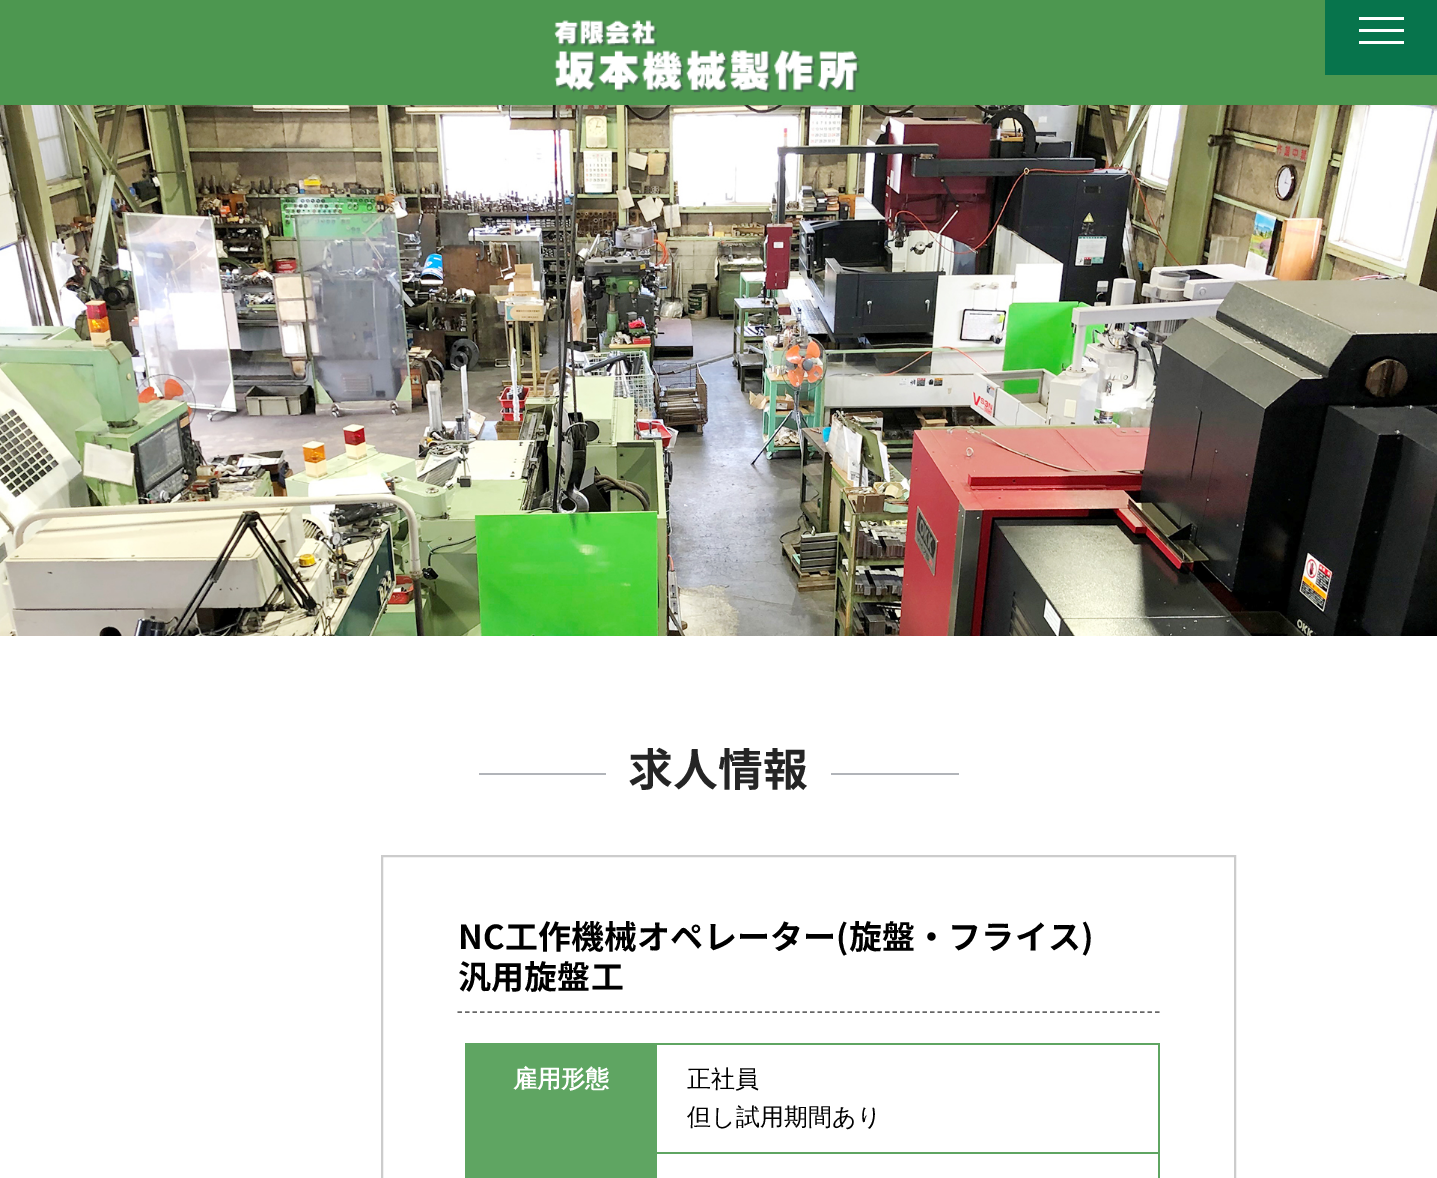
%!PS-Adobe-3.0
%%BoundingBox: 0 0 1437 1178
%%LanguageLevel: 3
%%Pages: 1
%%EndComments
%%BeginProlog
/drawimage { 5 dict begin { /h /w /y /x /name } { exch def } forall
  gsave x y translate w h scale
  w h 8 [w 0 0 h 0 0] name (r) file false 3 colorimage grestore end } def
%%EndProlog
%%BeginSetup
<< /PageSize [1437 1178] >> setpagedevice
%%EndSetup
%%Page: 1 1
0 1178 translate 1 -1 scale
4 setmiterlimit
1 setgray
0 0 1437 1178 rectfill
0.302 0.592 0.314 setrgbcolor
0 0 1437 105 rectfill
(images/1.raw) 554 20 306 73 drawimage
0.027 0.455 0.298 setrgbcolor
1325 0 112 75 rectfill
1 setgray
1359 29 45 3 rectfill
1359 17 45 3 rectfill
1359 41 45 3 rectfill
(images/2.raw) 0 105 1437 531 drawimage
0.694 0.706 0.725 setrgbcolor
479 773 127 2 rectfill
831 773 128 2 rectfill
0.8 setgray
2 setlinewidth
382 856 853 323 rectstroke
0.4 setgray
1.5 setlinewidth
[4.5 3] 0 setdash
newpath 457.5 1012 moveto 1159.5 1012 lineto stroke
0.373 0.647 0.384 setrgbcolor
465 1043 695 2 rectfill
1158 1044 2 134 rectfill
465 1045 192 133 rectfill
657 1152 501 2 rectfill
/NotoSansJP-Bold [45 0 0 -45 0 0] selectfont
0.145 setgray
628 786 moveto 0.15 0 (求人情報) ashow
/NotoSansJP-Bold [33 0 0 -33 0 0] selectfont
0 setgray
458 949 moveto 0.15 0 (NC工作機械オペレーター\(旋盤・フライス\)) ashow
458 989 moveto 0.15 0 (汎用旋盤工) ashow
/WenQuanYiZenHei-Bold [24 0 0 -24 0 0] selectfont
1 setgray
513 1087 moveto 0.15 0 (雇用形態) ashow
/WenQuanYiZenHei-Medium [24 0 0 -24 0 0] selectfont
0 setgray
687 1087 moveto 0.15 0 (正社員) ashow
687 1125 moveto 0.15 0 (但し試用期間あり) ashow
showpage
%%EOF
